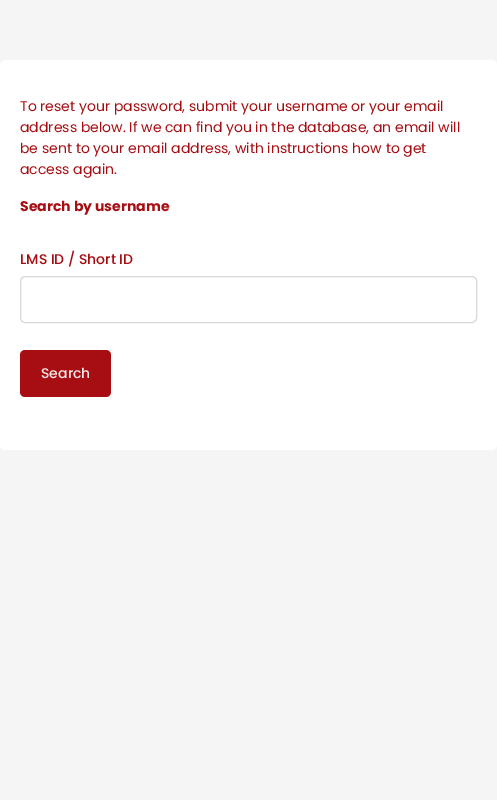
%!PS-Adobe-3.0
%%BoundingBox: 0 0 497 800
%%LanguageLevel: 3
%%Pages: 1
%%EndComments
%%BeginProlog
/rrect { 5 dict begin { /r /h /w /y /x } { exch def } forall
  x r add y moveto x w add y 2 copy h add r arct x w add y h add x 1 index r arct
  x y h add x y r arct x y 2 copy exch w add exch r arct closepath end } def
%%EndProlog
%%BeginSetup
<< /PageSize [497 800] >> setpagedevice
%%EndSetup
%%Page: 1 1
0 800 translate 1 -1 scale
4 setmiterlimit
0.961 setgray
0 0 497 800 rectfill
1 setgray
0 60 497 390 5 rrect fill
0.847 setgray
20.5 276.5 456 46 4.5 rrect stroke
0.655 0.055 0.075 setrgbcolor
20 350 91 47 5 rrect fill
/Poppins-Regular [14 0 0 -14 0 0] selectfont
20 111 moveto (To reset your password, submit your username or your email) show
20 132 moveto (address below. If we can find you in the database, an email will) show
20 153 moveto (be sent to your email address, with instructions how to get) show
20 174 moveto (access again.) show
/Poppins-Bold [14 0 0 -14 0 0] selectfont
20 211 moveto (Search by username) show
/Poppins-Medium [14 0 0 -14 0 0] selectfont
20 264 moveto (LMS ID / Short ID) show
0.965 0.906 0.906 setrgbcolor
41 378 moveto (Search) show
showpage
%%EOF
